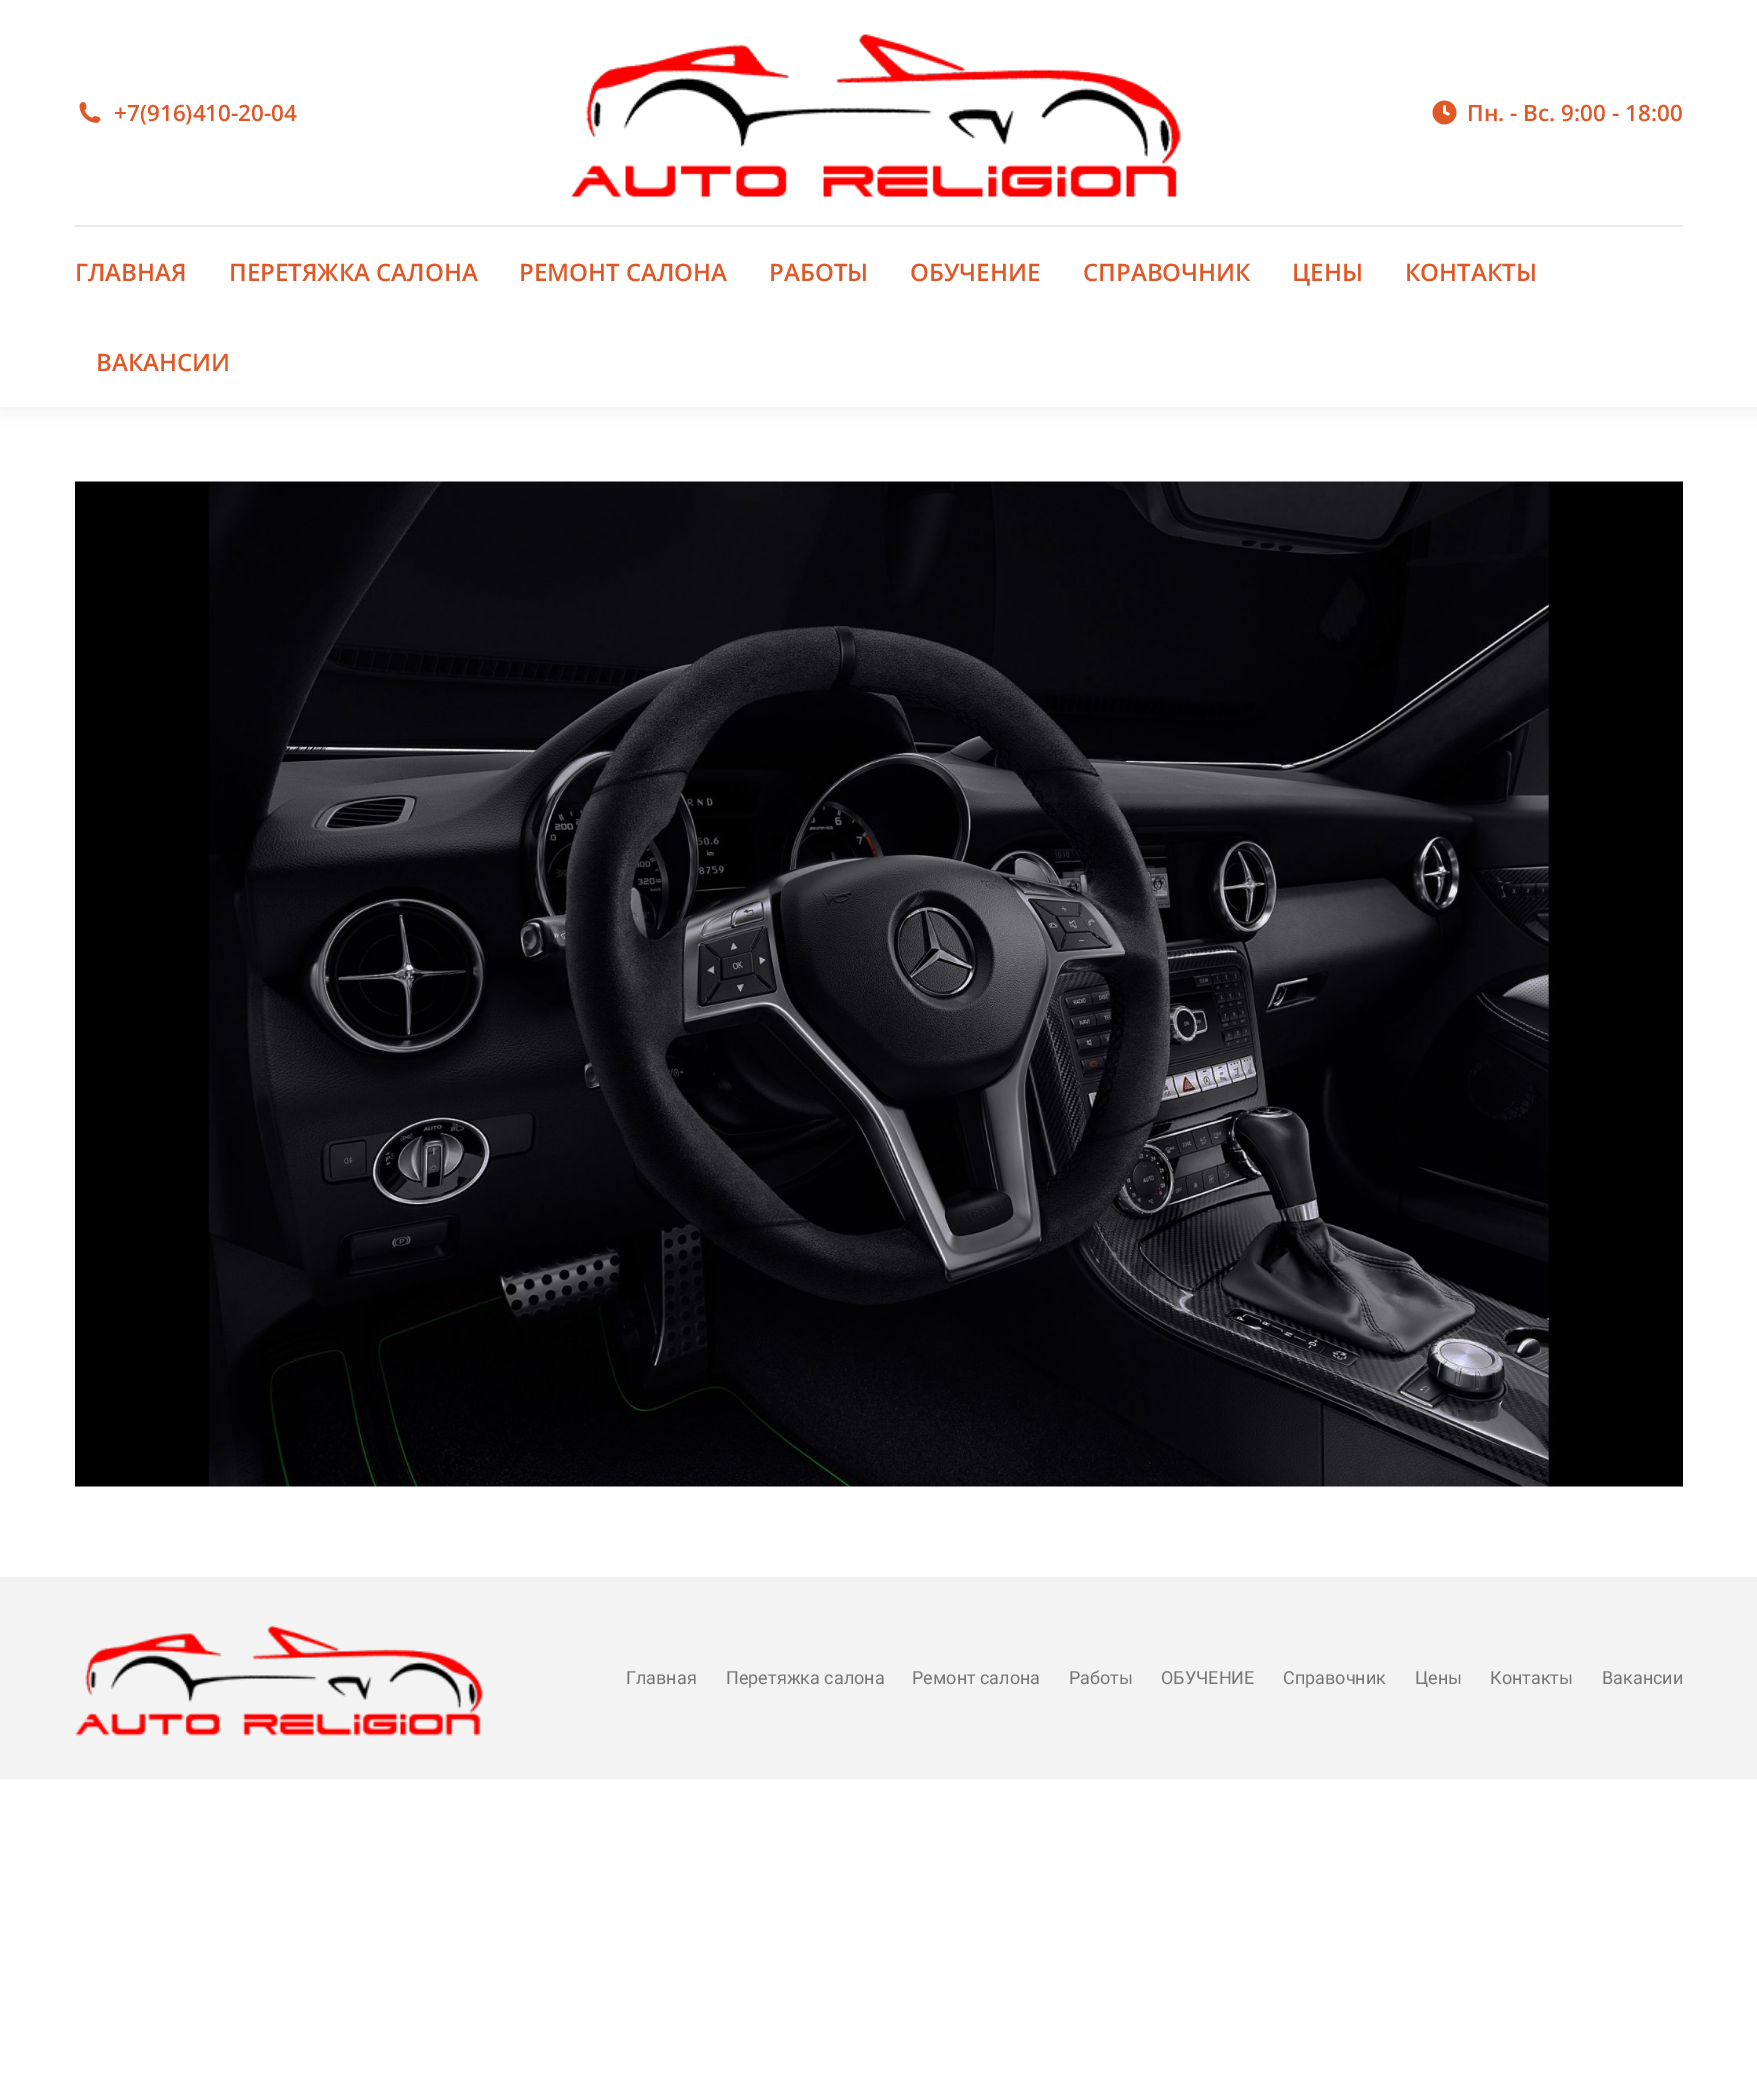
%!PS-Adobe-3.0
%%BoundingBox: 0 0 1757 2100
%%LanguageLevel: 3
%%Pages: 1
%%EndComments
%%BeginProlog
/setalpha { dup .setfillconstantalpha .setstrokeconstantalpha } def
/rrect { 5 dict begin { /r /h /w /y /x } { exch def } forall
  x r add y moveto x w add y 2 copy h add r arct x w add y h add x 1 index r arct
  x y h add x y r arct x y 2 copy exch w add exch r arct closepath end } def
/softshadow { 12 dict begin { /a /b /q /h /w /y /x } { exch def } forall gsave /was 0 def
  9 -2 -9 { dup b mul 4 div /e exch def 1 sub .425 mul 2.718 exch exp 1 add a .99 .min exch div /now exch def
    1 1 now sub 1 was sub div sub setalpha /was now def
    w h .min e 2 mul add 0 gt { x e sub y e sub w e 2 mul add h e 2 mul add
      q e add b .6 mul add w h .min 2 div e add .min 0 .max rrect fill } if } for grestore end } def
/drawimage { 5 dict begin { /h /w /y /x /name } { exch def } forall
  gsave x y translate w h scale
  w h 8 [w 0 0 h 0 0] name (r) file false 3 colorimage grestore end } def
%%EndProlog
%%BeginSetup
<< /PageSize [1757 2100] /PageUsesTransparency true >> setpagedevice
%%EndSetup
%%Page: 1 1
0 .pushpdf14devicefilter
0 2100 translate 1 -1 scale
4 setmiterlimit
1 setgray
0 0 1757 2100 rectfill
0 setgray
-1 -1 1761 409 0 11 0.07 softshadow
1 setgray
0 0 1757 407 rectfill
(images/1.raw) 79 102 22 21 drawimage
(images/2.raw) 571 34 610 163 drawimage
(images/3.raw) 1432 100 25 25 drawimage
0.914 setgray
75 225 1608 2 rectfill
(images/4.raw) 75 481 1608 1006 drawimage
0.953 setgray
0 1577 1757 202 rectfill
(images/5.raw) 75 1625 409 111 drawimage
/OpenSans-SemiBold [22.5 0 0 -22.5 0 0] selectfont
0.875 0.345 0.157 setrgbcolor
114 121 moveto (+7\(916\)410-20-04) show
1467 121 moveto (Пн. - Вс. 9:00 - 18:00) show
/OpenSans-SemiBold [24 0 0 -24 0 0] selectfont
75 281 moveto (ГЛАВНАЯ) show
229 281 moveto (ПЕРЕТЯЖКА САЛОНА) show
519 281 moveto (РЕМОНТ САЛОНА) show
769 281 moveto (РАБОТЫ) show
910 281 moveto (ОБУЧЕНИЕ) show
1083 281 moveto (СПРАВОЧНИК) show
1292 281 moveto (ЦЕНЫ) show
1405 281 moveto (КОНТАКТЫ) show
96 371 moveto (ВАКАНСИИ) show
/Roboto-Regular [18 0 0 -18 0 0] selectfont
0.467 setgray
626 1684 moveto (Главная) show
726 1684 moveto (Перетяжка салона) show
912 1684 moveto (Ремонт салона) show
1069 1684 moveto (Работы) show
1161 1684 moveto (ОБУЧЕНИЕ) show
1283 1684 moveto (Справочник) show
1415 1684 moveto (Цены) show
1490 1684 moveto (Контакты) show
1602 1684 moveto (Вакансии) show
.poppdf14devicefilter showpage
%%EOF
